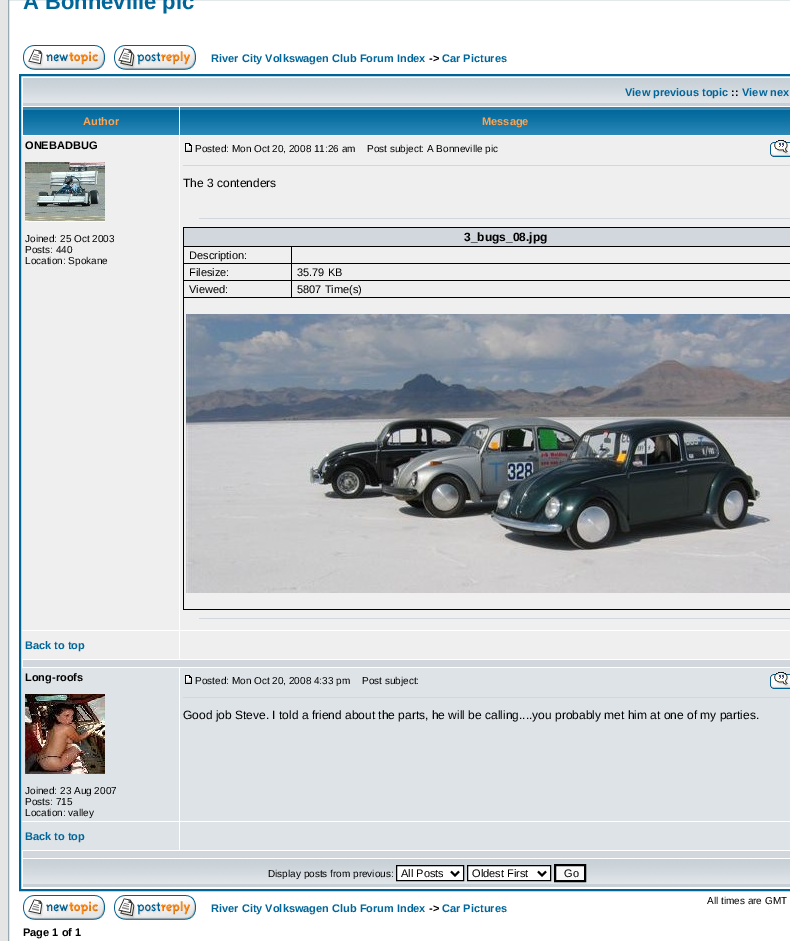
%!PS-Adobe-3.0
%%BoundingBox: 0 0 790 941
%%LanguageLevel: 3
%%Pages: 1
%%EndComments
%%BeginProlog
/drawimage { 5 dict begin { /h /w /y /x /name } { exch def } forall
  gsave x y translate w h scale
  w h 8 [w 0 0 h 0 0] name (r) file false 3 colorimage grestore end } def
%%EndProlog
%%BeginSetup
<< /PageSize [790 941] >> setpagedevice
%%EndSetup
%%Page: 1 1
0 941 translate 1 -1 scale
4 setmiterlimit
0.898 setgray
0 0 790 941 rectfill
1 setgray
newpath 8.5 -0.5 moveto 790.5 -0.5 lineto 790.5 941.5 lineto 8.5 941.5 lineto closepath gsave fill grestore
0.596 0.667 0.694 setrgbcolor
stroke
(images/1.raw) 23 45 82 25 drawimage
(images/2.raw) 114 45 82 25 drawimage
0 0.4 0.6 setrgbcolor
2 setlinewidth
20 75 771 815 rectstroke
(images/3.raw) 23 78 767 28 drawimage
(images/4.raw) 23 107 156 28 drawimage
(images/5.raw) 180 107 610 28 drawimage
0.937 setgray
22 136 157 494 rectfill
(images/6.raw) 25 162 80 60 drawimage
180 136 610 494 rectfill
(images/7.raw) 185 143 7 9 drawimage
(images/8.raw) 770 140 20 17 drawimage
0.82 0.843 0.863 setrgbcolor
183 165 607 1 rectfill
199 218 591 1 rectfill
0 setgray
183 227 607 1 rectfill
183 609 607 1 rectfill
183 227 1 383 rectfill
0.82 0.843 0.863 setrgbcolor
184 228 606 18 rectfill
0 setgray
291 246 499 1 rectfill
291 263 499 1 rectfill
291 280 499 1 rectfill
183 297 607 1 rectfill
291 280 1 18 rectfill
183 280 109 1 rectfill
291 263 1 18 rectfill
183 263 109 1 rectfill
291 246 1 18 rectfill
183 246 109 1 rectfill
(images/9.raw) 186 314 604 279 drawimage
0.82 0.843 0.863 setrgbcolor
199 618 591 1 rectfill
0.937 setgray
22 631 157 28 rectfill
180 631 610 28 rectfill
0.82 0.843 0.863 setrgbcolor
23 660 767 7 rectfill
0.871 0.89 0.906 setrgbcolor
22 668 157 153 rectfill
(images/10.raw) 25 694 80 80 drawimage
180 668 610 153 rectfill
(images/11.raw) 185 675 7 9 drawimage
(images/12.raw) 770 672 20 17 drawimage
0.82 0.843 0.863 setrgbcolor
183 697 607 1 rectfill
0.871 0.89 0.906 setrgbcolor
22 822 157 28 rectfill
180 822 610 28 rectfill
0.82 0.843 0.863 setrgbcolor
23 851 767 7 rectfill
(images/3.raw) 23 859 767 28 drawimage
1 setgray
newpath 396.5 865.5 moveto 463.5 865.5 lineto 463.5 880.5 lineto 396.5 880.5 lineto closepath gsave fill grestore
0 setgray
1 setlinewidth
stroke
2 setlinewidth
newpath 451 871.5 moveto 455 875.5 lineto 459 871.5 lineto stroke
1 setgray
newpath 467.5 865.5 moveto 550.5 865.5 lineto 550.5 880.5 lineto 467.5 880.5 lineto closepath gsave fill grestore
0 setgray
1 setlinewidth
stroke
2 setlinewidth
newpath 538 871.5 moveto 542 875.5 lineto 546 871.5 lineto stroke
0.98 setgray
newpath 555 865 moveto 585 865 lineto 585 881 lineto 555 881 lineto closepath gsave fill grestore
0 setgray
stroke
(images/1.raw) 23 895 82 25 drawimage
(images/2.raw) 114 895 82 25 drawimage
/LiberationSans-Bold [22 0 0 -22 0 0] selectfont
0 0.4 0.6 setrgbcolor
23 9 moveto (A Bonneville pic) show
/LiberationSans-Bold [11 0 0 -11 0 0] selectfont
211 62 moveto (River City Volkswagen Club Forum Index) show
0 setgray
429 62 moveto (->) show
0 0.4 0.6 setrgbcolor
442 62 moveto (Car Pictures) show
625 96 moveto (View previous topic) show
0 setgray
731 96 moveto (::) show
0 0.4 0.6 setrgbcolor
742 96 moveto (View nex) show
1 0.639 0.31 setrgbcolor
83 125 moveto (Author) show
482 125 moveto (Message) show
0 setgray
25 149 moveto (ONEBADBUG) show
/LiberationSans-Regular [10 0 0 -10 0 0] selectfont
25 242 moveto (Joined: 25 Oct 2003) show
25 253 moveto (Posts: 440) show
25 264 moveto (Location: Spokane) show
195 152 moveto (Posted: Mon Oct 20, 2008 11:26 am) show
367 152 moveto (Post subject: A Bonneville pic) show
/LiberationSans-Regular [12 0 0 -12 0 0] selectfont
183 187 moveto (The 3 contenders) show
/LiberationSans-Bold [12 0 0 -12 0 0] selectfont
464 241 moveto (3_bugs_08.jpg) show
/LiberationSans-Regular [11 0 0 -11 0 0] selectfont
189 259 moveto (Description:) show
189 276 moveto (Filesize:) show
297 276 moveto (35.79 KB) show
189 293 moveto (Viewed:) show
297 293 moveto (5807 Time\(s\)) show
/LiberationSans-Bold [11 0 0 -11 0 0] selectfont
0 0.4 0.6 setrgbcolor
25 649 moveto (Back to top) show
0 setgray
25 681 moveto (Long-roofs) show
/LiberationSans-Regular [10 0 0 -10 0 0] selectfont
25 794 moveto (Joined: 23 Aug 2007) show
25 805 moveto (Posts: 715) show
25 816 moveto (Location: valley) show
195 684 moveto (Posted: Mon Oct 20, 2008 4:33 pm) show
362 684 moveto (Post subject:) show
/LiberationSans-Regular [12 0 0 -12 0 0] selectfont
183 719 moveto (Good job Steve. I told a friend about the parts, he will be calling....you probably met him at one of my parties.) show
/LiberationSans-Bold [11 0 0 -11 0 0] selectfont
0 0.4 0.6 setrgbcolor
25 840 moveto (Back to top) show
/LiberationSans-Regular [10 0 0 -10 0 0] selectfont
0 setgray
268 877 moveto (Display posts from previous:) show
/LiberationSans-Regular [11 0 0 -11 0 0] selectfont
401 877 moveto (All Posts) show
472 877 moveto (Oldest First) show
564 877 moveto (Go) show
/LiberationSans-Regular [10 0 0 -10 0 0] selectfont
707 904 moveto (All times are GMT) show
/LiberationSans-Bold [11 0 0 -11 0 0] selectfont
0 0.4 0.6 setrgbcolor
211 912 moveto (River City Volkswagen Club Forum Index) show
0 setgray
429 912 moveto (->) show
0 0.4 0.6 setrgbcolor
442 912 moveto (Car Pictures) show
0 setgray
23 936 moveto (Page 1 of 1) show
showpage
%%EOF
